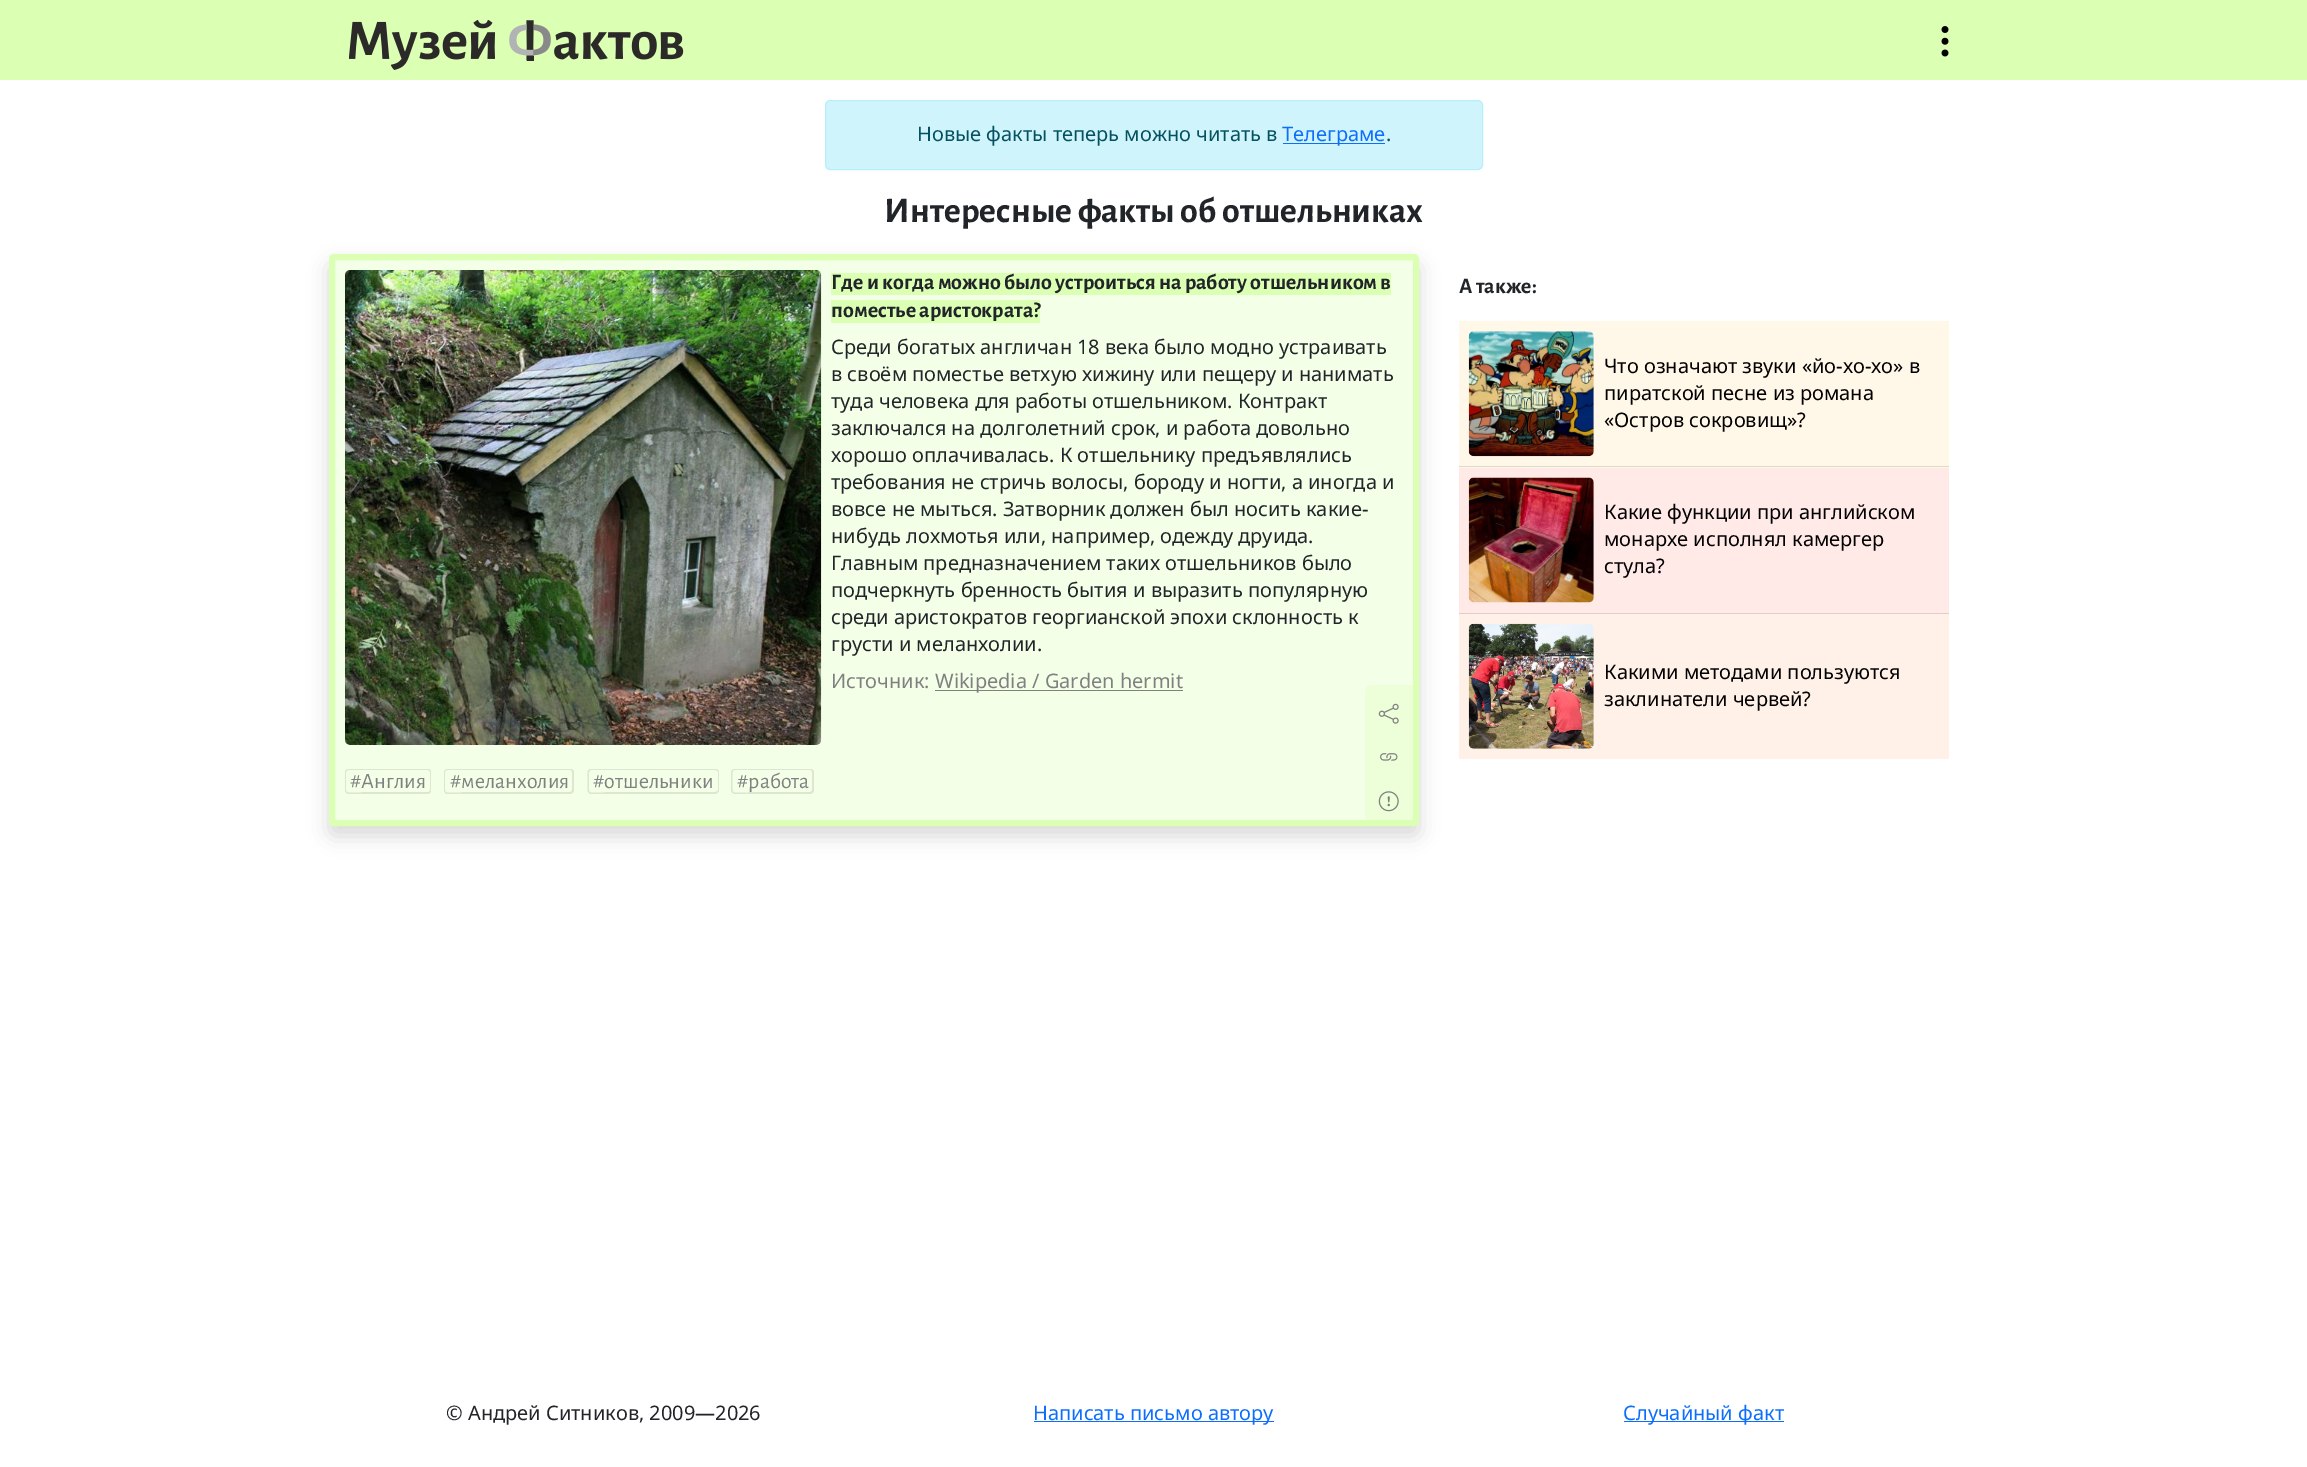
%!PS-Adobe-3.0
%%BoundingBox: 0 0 2307 1467
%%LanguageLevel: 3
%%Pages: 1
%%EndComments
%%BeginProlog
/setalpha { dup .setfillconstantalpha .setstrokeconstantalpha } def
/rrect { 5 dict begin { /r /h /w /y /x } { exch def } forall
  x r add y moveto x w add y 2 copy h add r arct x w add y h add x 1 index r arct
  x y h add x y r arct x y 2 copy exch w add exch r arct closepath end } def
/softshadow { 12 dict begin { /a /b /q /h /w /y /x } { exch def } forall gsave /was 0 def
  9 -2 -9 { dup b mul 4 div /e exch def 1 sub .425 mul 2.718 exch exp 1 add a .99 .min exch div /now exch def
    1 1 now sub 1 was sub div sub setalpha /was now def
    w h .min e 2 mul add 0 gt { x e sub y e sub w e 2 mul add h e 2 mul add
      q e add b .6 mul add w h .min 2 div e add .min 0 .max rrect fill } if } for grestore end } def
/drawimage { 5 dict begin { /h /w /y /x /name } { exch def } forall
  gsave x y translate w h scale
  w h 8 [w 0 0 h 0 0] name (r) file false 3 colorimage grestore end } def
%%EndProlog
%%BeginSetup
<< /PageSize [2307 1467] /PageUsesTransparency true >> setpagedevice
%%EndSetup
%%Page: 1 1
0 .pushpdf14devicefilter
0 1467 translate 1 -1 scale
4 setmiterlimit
1 setgray
0 0 2307 1467 rectfill
0.859 1 0.702 setrgbcolor
0 0 2307 80 rectfill
(images/1.raw) 349 20 335 50 drawimage
(images/2.raw) 1941 26 8 31 drawimage
0.812 0.957 0.988 setrgbcolor
825.5 100.5 657 69 4.5 rrect gsave fill grestore
0.714 0.937 0.984 setrgbcolor
stroke
0.051 0.431 0.992 setrgbcolor
1283 143 102 1 rectfill
gsave
newpath 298 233 moveto 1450 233 lineto 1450 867 lineto 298 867 lineto closepath 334 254 moveto 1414 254 lineto 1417 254 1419 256 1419 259 curveto 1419 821 lineto 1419 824 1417 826 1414 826 curveto 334 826 lineto 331 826 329 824 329 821 curveto 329 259 lineto 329 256 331 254 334 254 curveto closepath eoclip newpath
0 setgray
329 264 1090 572 5 10 0.15 softshadow
grestore
0.3 setalpha
0.859 1 0.702 setrgbcolor
332 257 1084 566 2 rrect fill
1 setalpha
6 setlinewidth
332 257 1084 566 2 rrect stroke
(images/3.raw) 345 270 477 475 drawimage
831 273 560 22 rectfill
831 300 209 23 rectfill
0.502 setgray
935 690 248 1 rectfill
0.863 0.902 0.82 setrgbcolor
newpath 349 769 moveto 361 769 lineto 361 794 lineto 349 794 lineto 346.5 794 345 792 345 790 curveto 345 772.5 lineto 345 770.5 346.5 769 349 769 curveto closepath 349 770 moveto 361 770 lineto 361 792.5 lineto 349 792.5 lineto 347.5 792.5 346 791.5 346 790 curveto 346 772.5 lineto 346 771 347.5 770 349 770 curveto closepath eofill
newpath 361 769 moveto 428 769 lineto 430 769 431 770 431 772 curveto 431 790 lineto 431 792 430 794 428 794 curveto 361 794 lineto closepath 361 770 moveto 428 770 lineto 429 770 430 771 430 772 curveto 430 790 lineto 430 791 429 792 428 792 curveto 361 792 lineto closepath eofill
newpath 447.5 769 moveto 461 769 lineto 461 794 lineto 447.5 794 lineto 445.5 794 444 792 444 790 curveto 444 772.5 lineto 444 770.5 445.5 769 447.5 769 curveto closepath 447.5 770 moveto 461 770 lineto 461 792.5 lineto 447.5 792.5 lineto 446 792.5 445 791.5 445 790 curveto 445 772.5 lineto 445 771 446 770 447.5 770 curveto closepath eofill
newpath 461 769 moveto 570 769 lineto 572 769 574 770 574 772 curveto 574 790 lineto 574 792 572 794 570 794 curveto 461 794 lineto closepath 461 770 moveto 570 770 lineto 571 770 572 771 572 772 curveto 572 790 lineto 572 791 571 792 570 792 curveto 461 792 lineto closepath eofill
newpath 591 769 moveto 604 769 lineto 604 794 lineto 591 794 lineto 589 794 587.5 792 587.5 790 curveto 587.5 772.5 lineto 587.5 770.5 589 769 591 769 curveto closepath 591 770 moveto 604 770 lineto 604 792.5 lineto 591 792.5 lineto 590 792.5 589 791.5 589 790 curveto 589 772.5 lineto 589 771 590 770 591 770 curveto closepath eofill
newpath 604 769 moveto 715 769 lineto 717 769 719 770 719 772 curveto 719 790 lineto 719 792 717 794 715 794 curveto 604 794 lineto closepath 604 770 moveto 715 770 lineto 716 770 718 771 718 772 curveto 718 790 lineto 718 791 716 792 715 792 curveto 604 792 lineto closepath eofill
newpath 735 769 moveto 747.5 769 lineto 747.5 794 lineto 735 794 lineto 733 794 731 792 731 790 curveto 731 772.5 lineto 731 770.5 733 769 735 769 curveto closepath 735 770 moveto 747.5 770 lineto 747.5 792.5 lineto 735 792.5 lineto 733.5 792.5 732.5 791.5 732.5 790 curveto 732.5 772.5 lineto 732.5 771 733.5 770 735 770 curveto closepath eofill
newpath 748 769 moveto 810 769 lineto 812 769 814 770 814 772 curveto 814 790 lineto 814 792 812 794 810 794 curveto 748 794 lineto closepath 748 770 moveto 810 770 lineto 811 770 812 771 812 772 curveto 812 790 lineto 812 791 811 792 810 792 curveto 748 792 lineto closepath eofill
0.929 1 0.847 setrgbcolor
newpath 1371 685 moveto 1413 685 lineto 1413 820 lineto 1365 820 lineto 1365 691 lineto 1365 687.5 1367.5 685 1371 685 curveto closepath fill
(images/4.raw) 1378 703 21 21 drawimage
(images/5.raw) 1380 753 18 8 drawimage
(images/6.raw) 1378 791 21 21 drawimage
1 0.969 0.91 setrgbcolor
1459 321 490 147 rectfill
0.875 0.847 0.796 setrgbcolor
1459 466 490 1 rectfill
(images/7.raw) 1468 331 126 126 drawimage
1 0.918 0.91 setrgbcolor
1459 468 490 145 rectfill
0.875 0.804 0.796 setrgbcolor
1459 613 490 1 rectfill
(images/8.raw) 1468 477 126 126 drawimage
1 0.945 0.91 setrgbcolor
1459 614 490 145 rectfill
(images/9.raw) 1468 623 126 126 drawimage
0.051 0.431 0.992 setrgbcolor
1034 1421 240 1 rectfill
1624 1421 160 1 rectfill
/NotoSans-Regular [20 0 0 -20 0 0] selectfont
0.02 0.318 0.376 setrgbcolor
917 141 moveto (Новые факты теперь можно читать в) show
0.051 0.431 0.992 setrgbcolor
1282 141 moveto (Телеграме) show
0.02 0.318 0.376 setrgbcolor
1386 141 moveto (.) show
/AlegreyaSans-Bold [36 0 0 -36 0 0] selectfont
0.129 0.145 0.161 setrgbcolor
884 222 moveto (Интересные факты об отшельниках) show
/AlegreyaSans-Bold [22 0 0 -22 0 0] selectfont
831 289 moveto (Где и когда можно было устроиться на работу отшельником в) show
831 317 moveto (поместье аристократа?) show
/NotoSans-Regular [20 0 0 -20 0 0] selectfont
831 354 moveto (Среди богатых англичан 18 века было модно устраивать) show
831 381 moveto (в своём поместье ветхую хижину или пещеру и нанимать) show
831 408 moveto (туда человека для работы отшельником. Контракт) show
831 435 moveto (заключался на долголетний срок, и работа довольно) show
831 462 moveto (хорошо оплачивалась. К отшельнику предъявлялись) show
831 489 moveto (требования не стричь волосы, бороду и ногти, а иногда и) show
831 516 moveto (вовсе не мыться. Затворник должен был носить какие-) show
831 543 moveto (нибудь лохмотья или, например, одежду друида.) show
831 570 moveto (Главным предназначением таких отшельников было) show
831 597 moveto (подчеркнуть бренность бытия и выразить популярную) show
831 624 moveto (среди аристократов георгианской эпохи склонность к) show
831 651 moveto (грусти и меланхолии.) show
0.502 setgray
831 688 moveto (Источник:) show
935 688 moveto (Wikipedia / Garden hermit) show
/AlegreyaSans-Regular [22 0 0 -22 0 0] selectfont
350 788 moveto (#Англия) show
450 788 moveto (#меланхолия) show
593 788 moveto (#отшельники) show
737 788 moveto (#работа) show
/AlegreyaSans-Bold [22 0 0 -22 0 0] selectfont
0.129 0.145 0.161 setrgbcolor
1459 293 moveto (А также:) show
/NotoSans-Regular [20 0 0 -20 0 0] selectfont
0 setgray
1604 373 moveto (Что означают звуки «йо-хо-хо» в) show
1604 400 moveto (пиратской песне из романа) show
1604 427 moveto («Остров сокровищ»?) show
1604 519 moveto (Какие функции при английском) show
1604 546 moveto (монархе исполнял камергер) show
1604 573 moveto (стула?) show
1604 679 moveto (Какими методами пользуются) show
1604 706 moveto (заклинатели червей?) show
0.129 0.145 0.161 setrgbcolor
446 1420 moveto (© Андрей Ситников, 2009—2026) show
0.051 0.431 0.992 setrgbcolor
1033 1420 moveto (Написать письмо автору) show
1623 1420 moveto (Случайный факт) show
.poppdf14devicefilter showpage
%%EOF
